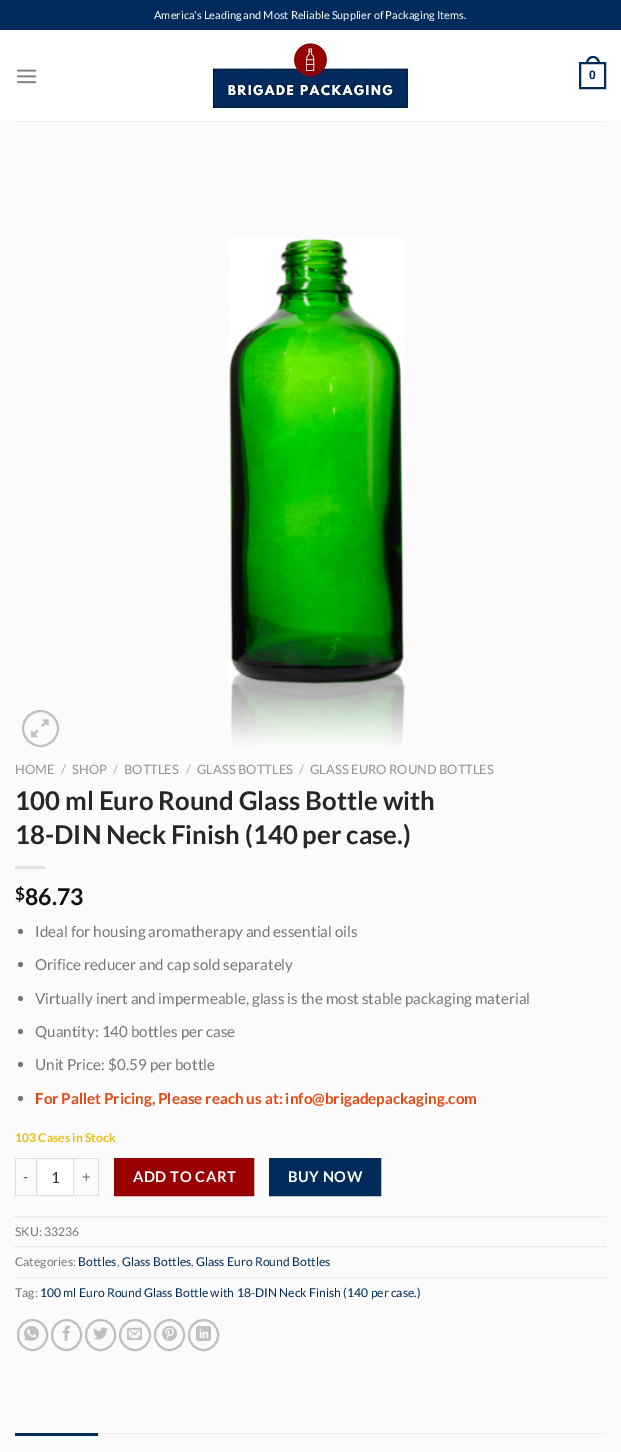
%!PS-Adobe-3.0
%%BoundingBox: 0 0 621 1452
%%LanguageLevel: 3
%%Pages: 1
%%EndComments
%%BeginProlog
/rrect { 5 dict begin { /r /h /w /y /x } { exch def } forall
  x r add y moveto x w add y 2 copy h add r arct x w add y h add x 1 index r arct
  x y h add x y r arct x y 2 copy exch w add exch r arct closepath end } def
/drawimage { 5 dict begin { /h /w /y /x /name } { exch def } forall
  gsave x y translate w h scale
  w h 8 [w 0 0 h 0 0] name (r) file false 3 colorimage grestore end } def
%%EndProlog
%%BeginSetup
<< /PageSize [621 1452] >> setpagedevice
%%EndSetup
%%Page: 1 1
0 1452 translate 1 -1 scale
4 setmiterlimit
0.984 setgray
0 0 621 1452 rectfill
0 0.169 0.361 setrgbcolor
0 0 621 30 rectfill
1 setgray
0 30 621 91 rectfill
(images/1.raw) 16 69 21 15 drawimage
(images/2.raw) 210 41 201 70 drawimage
0 0.169 0.361 setrgbcolor
2 setlinewidth
580 63 25 25 rectstroke
newpath 593 56 moveto 597.5 56 600 60 600 64 curveto 586 64 lineto 586 60 588.5 56 593 56 curveto closepath 593 58 moveto 596.5 58 598 61 598 64 curveto 588 64 lineto 588 61 589.5 58 593 58 curveto closepath eofill
0.933 setgray
15 121 591 1 rectfill
0.753 setgray
newpath 40.5 728.5 17.5 0 360 arc closepath stroke
(images/3.raw) 31 719 18 19 drawimage
(images/4.raw) 229 238 176 509 drawimage
0.886 setgray
15 866 30 3 rectfill
0.467 setgray
newpath 20.5 931.5 2.5 0 360 arc closepath fill
newpath 20.5 964.5 2.5 0 360 arc closepath fill
newpath 20.5 998.5 2.5 0 360 arc closepath fill
newpath 20.5 1031.5 2.5 0 360 arc closepath fill
newpath 20.5 1064.5 2.5 0 360 arc closepath fill
newpath 20.5 1098.5 2.5 0 360 arc closepath fill
0.867 setgray
15 1158 21 1 rectfill
15 1195 21 1 rectfill
15 1158 1 38 rectfill
1 setgray
newpath 36.5 1158.5 moveto 73.5 1158.5 lineto 73.5 1195.5 lineto 36.5 1195.5 lineto closepath gsave fill grestore
0.867 setgray
1 setlinewidth
stroke
74 1158 25 1 rectfill
98 1158 1 38 rectfill
74 1195 25 1 rectfill
0.6 0 0 setrgbcolor
newpath 114.5 1158.5 moveto 253.5 1158.5 lineto 253.5 1195.5 lineto 114.5 1195.5 lineto closepath gsave fill grestore
0.569 0 0 setrgbcolor
stroke
0 0.169 0.361 setrgbcolor
newpath 269.5 1158.5 moveto 380.5 1158.5 lineto 380.5 1195.5 lineto 269.5 1195.5 lineto closepath gsave fill grestore
0 0.161 0.341 setrgbcolor
stroke
0.867 setgray
[1 1] 0 setdash
newpath 15 1216.5 moveto 606 1216.5 lineto stroke
newpath 15 1246.5 moveto 606 1246.5 lineto stroke
newpath 15 1277.5 moveto 606 1277.5 lineto stroke
0.753 setgray
2 setlinewidth
[] 0 setdash
18 1320 29 30 14.5 rrect stroke
(images/5.raw) 24 1325 15 16 drawimage
52 1320 29 30 14.5 rrect stroke
(images/6.raw) 62 1326 8 15 drawimage
86 1320 29 30 14.5 rrect stroke
(images/7.raw) 93 1327 15 13 drawimage
newpath 135 1335 15 0 360 arc closepath stroke
(images/8.raw) 127 1327 15 13 drawimage
155 1320 29 30 14.5 rrect stroke
(images/9.raw) 162 1326 15 15 drawimage
189 1320 29 30 14.5 rrect stroke
(images/10.raw) 196 1326 15 15 drawimage
0.925 setgray
98 1433 508 1 rectfill
0 0.169 0.361 setrgbcolor
15 1433 83 3 rectfill
/Lato-Regular [11 0 0 -11 0 0] selectfont
1 setgray
154 19 moveto (America's Leading and Most Reliable Supplier of Packaging Items.) show
/LiberationSans-Bold [12.15 0 0 -12.15 0 0] selectfont
0 0.169 0.361 setrgbcolor
589 79 moveto (0) show
/Lato-Regular [12.9 0 0 -12.9 0 0] selectfont
0.576 setgray
15 774 moveto (HOME) show
0.686 setgray
61 774 moveto (/) show
0.576 setgray
72 774 moveto (SHOP) show
0.686 setgray
113 774 moveto (/) show
0.576 setgray
124 774 moveto (BOTTLES) show
0.686 setgray
186 774 moveto (/) show
0.576 setgray
197 774 moveto (GLASS BOTTLES) show
0.686 setgray
299 774 moveto (/) show
0.576 setgray
310 774 moveto (GLASS EURO ROUND BOTTLES) show
/Lato-Bold [25.8 0 0 -25.8 0 0] selectfont
0.165 0.149 0.149 setrgbcolor
15 810 moveto (100 ml Euro Round Glass Bottle with) show
15 844 moveto (18-DIN Neck Finish \(140 per case.\)) show
/Lato-Bold [17 0 0 -17 0 0] selectfont
0.067 setgray
15 900 moveto ($) show
/Lato-Bold [23 0 0 -23 0 0] selectfont
25 905 moveto (86.73) show
/Lato-Regular [15.2 0 0 -15.2 0 0] selectfont
0.467 setgray
35 937 moveto (Ideal for housing aromatherapy and essential oils) show
35 970 moveto (Orifice reducer and cap sold separately) show
35 1004 moveto (Virtually inert and impermeable, glass is the most stable packaging material) show
35 1037 moveto (Quantity: 140 bottles per case) show
35 1070 moveto (Unit Price: $0.59 per bottle) show
/Lato-Bold [15.2 0 0 -15.2 0 0] selectfont
0.906 0.278 0.071 setrgbcolor
35 1104 moveto (For Pallet Pricing, Please reach us at: info@brigadepackaging.com) show
/Lato-Bold [12.15 0 0 -12.15 0 0] selectfont
0.918 0.745 0.071 setrgbcolor
15 1142 moveto (103 Cases in Stock) show
/Lato-Regular [14.75 0 0 -14.75 0 0] selectfont
0.4 setgray
23 1182 moveto 0.5 0 (-) ashow
/Lato-Regular [15.2 0 0 -15.2 0 0] selectfont
0.2 setgray
51 1183 moveto (1) show
/Lato-Regular [14.75 0 0 -14.75 0 0] selectfont
0.4 setgray
82 1182 moveto 0.5 0 (+) ashow
/Lato-Bold [14.75 0 0 -14.75 0 0] selectfont
1 setgray
133 1182 moveto 0.5 0 (ADD TO CART) ashow
288 1182 moveto 0.5 0 (BUY NOW) ashow
/Lato-Regular [12.15 0 0 -12.15 0 0] selectfont
0.467 setgray
15 1236 moveto (SKU: 33236) show
15 1266 moveto (Categories:) show
0 0.169 0.361 setrgbcolor
78 1266 moveto (Bottles) show
0.467 setgray
117 1266 moveto (,) show
0 0.169 0.361 setrgbcolor
122 1266 moveto (Glass Bottles) show
0.467 setgray
191 1266 moveto (,) show
0 0.169 0.361 setrgbcolor
196 1266 moveto (Glass Euro Round Bottles) show
0.467 setgray
15 1297 moveto (Tag:) show
0 0.169 0.361 setrgbcolor
40 1297 moveto (100 ml Euro Round Glass Bottle with 18-DIN Neck Finish \(140 per case.\)) show
showpage
%%EOF
